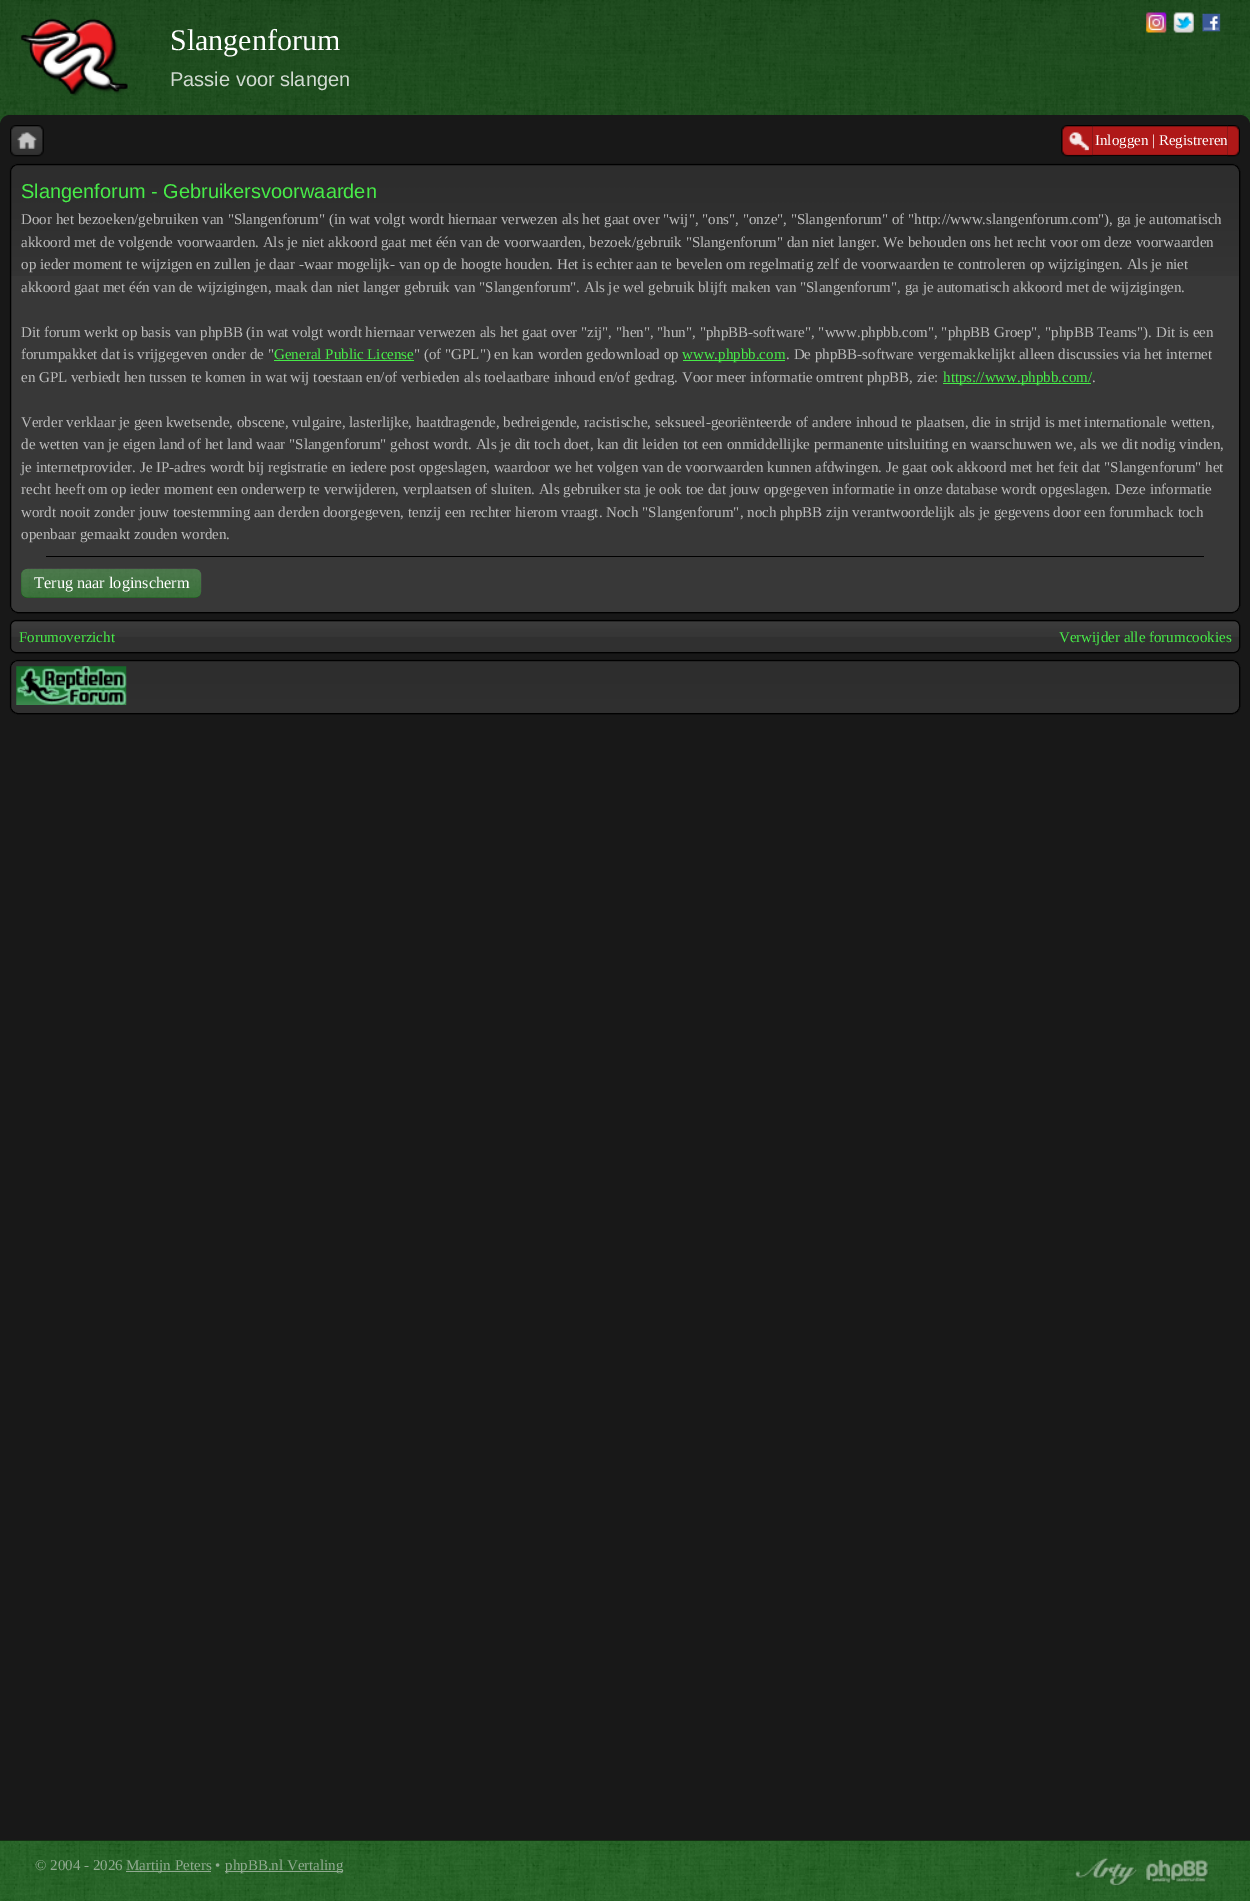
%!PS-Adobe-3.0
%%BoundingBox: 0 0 1250 1901
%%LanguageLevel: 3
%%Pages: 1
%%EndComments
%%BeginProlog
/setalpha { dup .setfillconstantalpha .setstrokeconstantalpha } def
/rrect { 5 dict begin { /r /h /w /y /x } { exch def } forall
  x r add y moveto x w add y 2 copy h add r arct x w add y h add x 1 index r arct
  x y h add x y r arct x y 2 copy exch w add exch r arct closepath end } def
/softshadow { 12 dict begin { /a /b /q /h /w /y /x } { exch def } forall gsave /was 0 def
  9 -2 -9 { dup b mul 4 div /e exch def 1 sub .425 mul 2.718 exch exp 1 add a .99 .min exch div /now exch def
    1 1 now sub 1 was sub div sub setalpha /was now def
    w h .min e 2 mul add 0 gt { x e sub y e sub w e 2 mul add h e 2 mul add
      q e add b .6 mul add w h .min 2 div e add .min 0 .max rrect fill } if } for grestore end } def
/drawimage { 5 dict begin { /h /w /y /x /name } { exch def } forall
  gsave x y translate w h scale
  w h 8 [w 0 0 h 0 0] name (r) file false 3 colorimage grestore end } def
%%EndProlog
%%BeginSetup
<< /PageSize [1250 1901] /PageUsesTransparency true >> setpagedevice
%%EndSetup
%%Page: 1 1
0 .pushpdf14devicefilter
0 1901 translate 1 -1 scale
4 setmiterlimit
0.094 setgray
0 0 1250 1901 rectfill
0.102 0.361 0.102 setrgbcolor
0 0 1250 125 rectfill
(images/1.raw) 0 0 1250 125 drawimage
(images/2.raw) 1146 12 21 21 drawimage
(images/3.raw) 1173 12 21 21 drawimage
(images/4.raw) 1202 13 19 19 drawimage
(images/5.raw) 20 18 108 78 drawimage
0.094 setgray
0 115 1250 1725 10 rrect fill
(images/6.raw) 10 125 34 32 drawimage
(images/7.raw) 1092 125 136 31 drawimage
(images/8.raw) 1061 125 32 32 drawimage
0 setgray
10 164 1230 449 8 1 0.5 softshadow
0.22 setgray
10 164 1230 449 8 rrect fill
(images/10.raw) 10 165 1230 111 drawimage
0 setgray
10.5 164.5 1229 448 7.5 rrect stroke
0.278 0.922 0.282 setrgbcolor
274 360 140 1 rectfill
683 360 102 1 rectfill
943 383 148 1 rectfill
0 setgray
46 556 1158 1 rectfill
0.102 0.361 0.102 setrgbcolor
21 569 180 29 6 rrect fill
(images/11.raw) 21 568 181 30 drawimage
0 setgray
10 620 1230 33 6 1 0.5 softshadow
0.188 setgray
10 620 1230 33 6 rrect fill
(images/12.raw) 10 621 1230 16 drawimage
0 setgray
10.5 620.5 1229 32 5.5 rrect stroke
10 660 1230 54 8 1 0.5 softshadow
0.22 setgray
10 660 1230 54 8 rrect fill
(images/13.raw) 10 661 1230 53 drawimage
0 setgray
10.5 660.5 1229 53 7.5 rrect stroke
(images/14.raw) 16 666 111 39 drawimage
0.102 0.361 0.102 setrgbcolor
0 1841 1250 60 rectfill
(images/15.raw) 0 1841 1250 60 drawimage
0.075 0.18 0.075 setrgbcolor
0 1840 1250 1 rectfill
0.569 0.667 0.569 setrgbcolor
126 1871 85 1 rectfill
225 1871 118 1 rectfill
(images/16.raw) 1075 1857 62 29 drawimage
(images/17.raw) 1146 1859 63 25 drawimage
/LiberationSerif-Regular [30 0 0 -30 0 0] selectfont
1 setgray
170 50 moveto (Slangenforum) show
/LiberationSans-Regular [20 0 0 -20 0 0] selectfont
0.824 0.859 0.824 setrgbcolor
170 86 moveto (Passie voor slangen) show
/LiberationSerif-Regular [15 0 0 -15 0 0] selectfont
1 setgray
1095 145 moveto (Inloggen | Registreren) show
(images/9.raw) 1227 125 13 32 drawimage
/LiberationSans-Regular [20 0 0 -20 0 0] selectfont
0.278 0.922 0.282 setrgbcolor
21 198 moveto (Slangenforum - Gebruikersvoorwaarden) show
/LiberationSerif-Regular [15 0 0 -15 0 0] selectfont
0.733 setgray
21 224 moveto (Door het bezoeken/gebruiken van "Slangenforum" \(in wat volgt wordt hiernaar verwezen als het gaat over "wij", "ons", "onze", "Slangenforum" of "http://www.slangenforum.com"\), ga je automatisch) show
21 247 moveto (akkoord met de volgende voorwaarden. Als je niet akkoord gaat met één van de voorwaarden, bezoek/gebruik "Slangenforum" dan niet langer. We behouden ons het recht voor om deze voorwaarden) show
21 269 moveto (op ieder moment te wijzigen en zullen je daar -waar mogelijk- van op de hoogte houden. Het is echter aan te bevelen om regelmatig zelf de voorwaarden te controleren op wijzigingen. Als je niet) show
21 292 moveto (akkoord gaat met één van de wijzigingen, maak dan niet langer gebruik van "Slangenforum". Als je wel gebruik blijft maken van "Slangenforum", ga je automatisch akkoord met de wijzigingen.) show
21 337 moveto (Dit forum werkt op basis van phpBB \(in wat volgt wordt hiernaar verwezen als het gaat over "zij", "hen", "hun", "phpBB-software", "www.phpbb.com", "phpBB Groep", "phpBB Teams"\). Dit is een) show
21 359 moveto (forumpakket dat is vrijgegeven onder de ") show
0.278 0.922 0.282 setrgbcolor
274 359 moveto (General Public License) show
0.733 setgray
414 359 moveto (" \(of "GPL"\) en kan worden gedownload op) show
0.278 0.922 0.282 setrgbcolor
682 359 moveto (www.phpbb.com) show
0.733 setgray
786 359 moveto (. De phpBB-software vergemakkelijkt alleen discussies via het internet) show
21 382 moveto (en GPL verbiedt hen tussen te komen in wat wij toestaan en/of verbieden als toelaatbare inhoud en/of gedrag. Voor meer informatie omtrent phpBB, zie:) show
0.278 0.922 0.282 setrgbcolor
943 382 moveto (https://www.phpbb.com/) show
0.733 setgray
1092 382 moveto (.) show
21 427 moveto (Verder verklaar je geen kwetsende, obscene, vulgaire, lasterlijke, haatdragende, bedreigende, racistische, seksueel-georiënteerde of andere inhoud te plaatsen, die in strijd is met internationale wetten,) show
21 449 moveto (de wetten van je eigen land of het land waar "Slangenforum" gehost wordt. Als je dit toch doet, kan dit leiden tot een onmiddellijke permanente uitsluiting en waarschuwen we, als we dit nodig vinden,) show
21 472 moveto (je internetprovider. Je IP-adres wordt bij registratie en iedere post opgeslagen, waardoor we het volgen van de voorwaarden kunnen afdwingen. Je gaat ook akkoord met het feit dat "Slangenforum" het) show
21 494 moveto (recht heeft om op ieder moment een onderwerp te verwijderen, verplaatsen of sluiten. Als gebruiker sta je ook toe dat jouw opgegeven informatie in onze database wordt opgeslagen. Deze informatie) show
21 517 moveto (wordt nooit zonder jouw toestemming aan derden doorgegeven, tenzij een rechter hierom vraagt. Noch "Slangenforum", noch phpBB zijn verantwoordelijk als je gegevens door een forumhack toch) show
21 539 moveto (openbaar gemaakt zouden worden.) show
/LiberationSerif-Regular [16.25 0 0 -16.25 0 0] selectfont
1 setgray
34 588 moveto (Terug naar loginscherm) show
/LiberationSerif-Regular [15 0 0 -15 0 0] selectfont
0.278 0.922 0.282 setrgbcolor
19 642 moveto (Forumoverzicht) show
1059 642 moveto (Verwijder alle forumcookies) show
0.569 0.667 0.569 setrgbcolor
35 1870 moveto (© 2004 - 2026) show
126 1870 moveto (Martijn Peters •) show
225 1870 moveto (phpBB.nl Vertaling) show
.poppdf14devicefilter showpage
%%EOF
